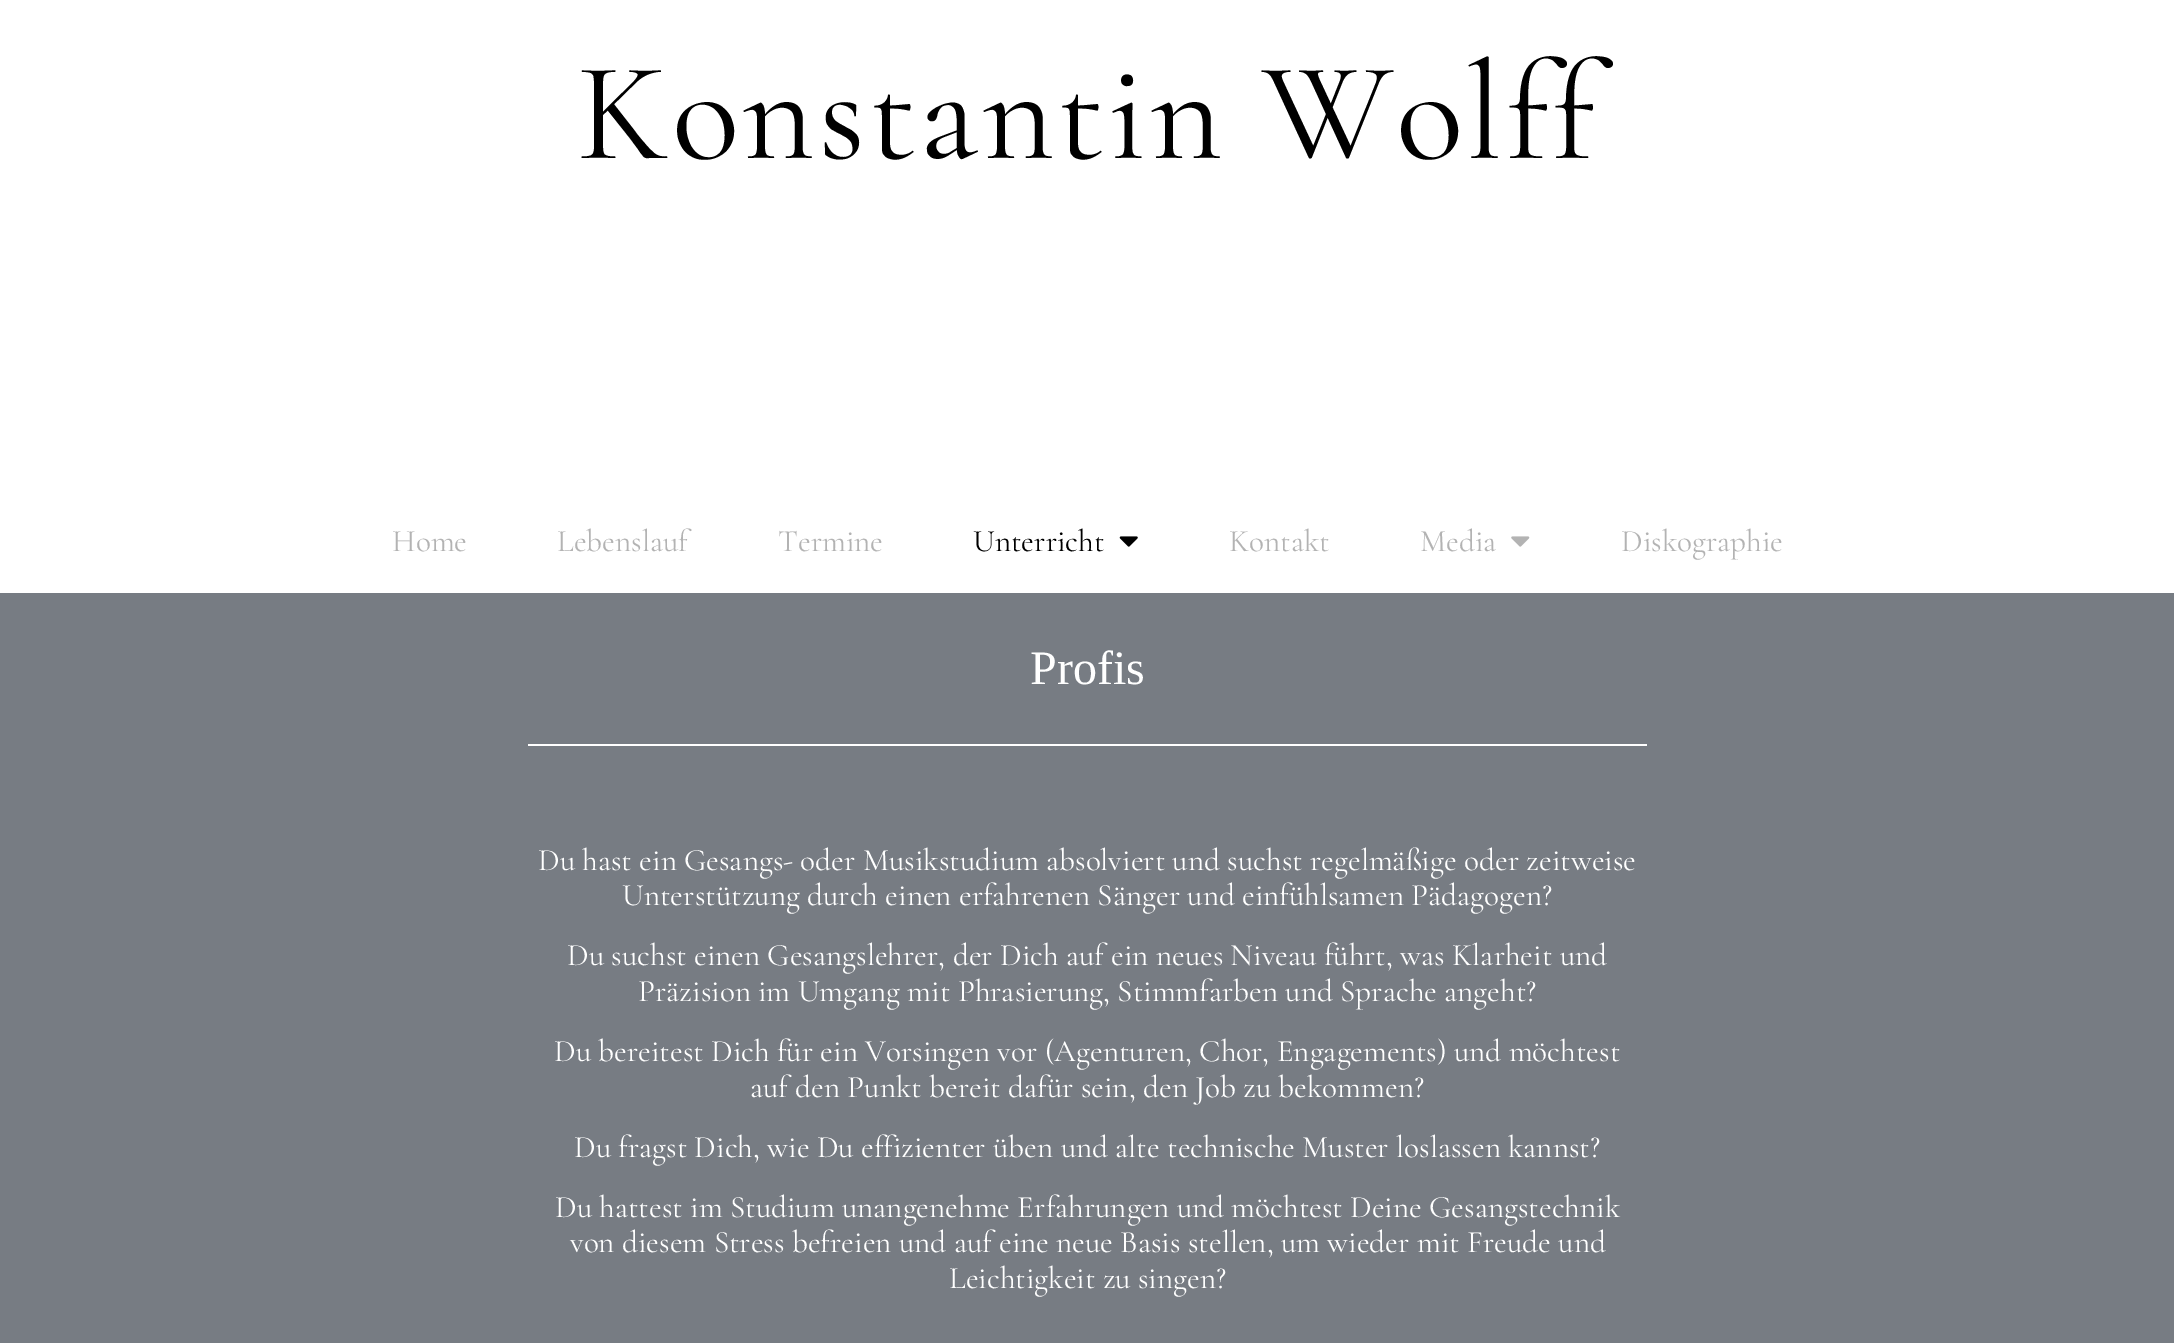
%!PS-Adobe-3.0
%%BoundingBox: 0 0 2174 1343
%%LanguageLevel: 3
%%Pages: 1
%%EndComments
%%BeginProlog
/drawimage { 5 dict begin { /h /w /y /x /name } { exch def } forall
  gsave x y translate w h scale
  w h 8 [w 0 0 h 0 0] name (r) file false 3 colorimage grestore end } def
%%EndProlog
%%BeginSetup
<< /PageSize [2174 1343] >> setpagedevice
%%EndSetup
%%Page: 1 1
0 1343 translate 1 -1 scale
4 setmiterlimit
1 setgray
0 0 2174 1343 rectfill
(images/1.raw) 1119 536 19 11 drawimage
(images/2.raw) 1511 536 19 11 drawimage
0.467 0.486 0.514 setrgbcolor
0 593 2174 750 rectfill
1 setgray
528 744 1119 2 rectfill
/CormorantGaramond-Regular [140.5 0 0 -140.5 0 0] selectfont
0 setgray
577 158 moveto 3.25 0 (Konstantin Wolff) ashow
/CormorantGaramond-Regular [31.2 0 0 -31.2 0 0] selectfont
0.702 setgray
392 551 moveto (Home) show
557 551 moveto (Lebenslauf) show
778 551 moveto (Termine) show
0 setgray
973 551 moveto (Unterricht) show
0.702 setgray
1229 551 moveto (Kontakt) show
1420 551 moveto (Media) show
1621 551 moveto (Diskographie) show
/LiberationSerif-Regular [48 0 0 -48 0 0] selectfont
1 setgray
1030 684 moveto (Profis) show
/CormorantGaramond-Regular [31.2 0 0 -31.2 0 0] selectfont
538 870 moveto (Du hast ein Gesangs- oder Musikstudium absolviert und suchst regelmäßige oder zeitweise) show
622 905 moveto (Unterstützung durch einen erfahrenen Sänger und einfühlsamen Pädagogen?) show
567 965 moveto (Du suchst einen Gesangslehrer, der Dich auf ein neues Niveau führt, was Klarheit und) show
638 1001 moveto (Präzision im Umgang mit Phrasierung, Stimmfarben und Sprache angeht?) show
554 1061 moveto (Du bereitest Dich für ein Vorsingen vor \(Agenturen, Chor, Engagements\) und möchtest) show
750 1097 moveto (auf den Punkt bereit dafür sein, den Job zu bekommen?) show
574 1157 moveto (Du fragst Dich, wie Du effizienter üben und alte technische Muster loslassen kannst?) show
555 1217 moveto (Du hattest im Studium unangenehme Erfahrungen und möchtest Deine Gesangstechnik) show
570 1252 moveto (von diesem Stress befreien und auf eine neue Basis stellen, um wieder mit Freude und) show
949 1288 moveto (Leichtigkeit zu singen?) show
showpage
%%EOF
